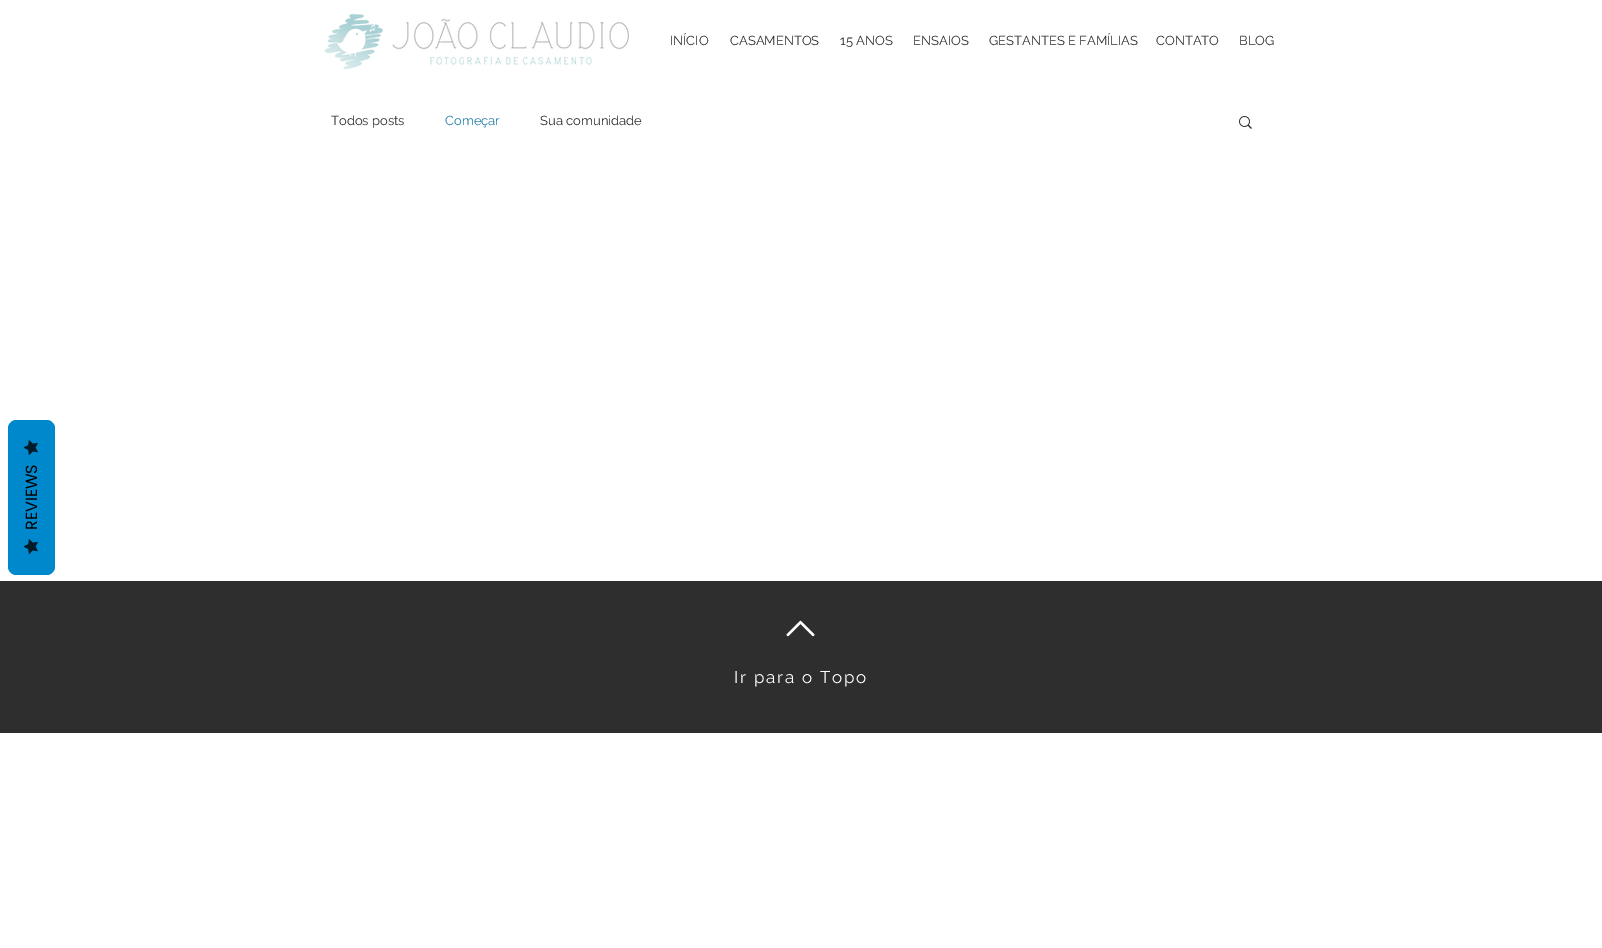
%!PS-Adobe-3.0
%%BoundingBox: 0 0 1602 948
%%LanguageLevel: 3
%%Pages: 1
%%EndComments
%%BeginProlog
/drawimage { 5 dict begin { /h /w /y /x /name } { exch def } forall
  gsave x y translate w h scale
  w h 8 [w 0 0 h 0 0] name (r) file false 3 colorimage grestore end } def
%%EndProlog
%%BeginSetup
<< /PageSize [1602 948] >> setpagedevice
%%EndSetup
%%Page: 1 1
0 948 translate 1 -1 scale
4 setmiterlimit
1 setgray
0 0 1602 948 rectfill
0 0.533 0.8 setrgbcolor
newpath 8 567 moveto 8 428 lineto 8 424 12 420 16 420 curveto 47 420 lineto 51 420 55 424 55 428 curveto 55 567 lineto 55 571 51 575 47 575 curveto 16 575 lineto 12 575 8 571 8 567 curveto closepath fill
(images/1.raw) 23 440 15 15 drawimage
(images/1.raw) 23 539 15 15 drawimage
(images/2.raw) 324 13 305 57 drawimage
(images/3.raw) 1239 116 13 13 drawimage
0.184 0.18 0.18 setrgbcolor
0 581 1602 152 rectfill
(images/4.raw) 786 620 29 17 drawimage
/Poppins-Regular [16 0 0 -16 0 0] selectfont
0 setgray
gsave 37 530 translate -90 rotate 0 0 moveto (REVIEWS) show grestore
/Raleway-Regular [13 0 0 -13 0 0] selectfont
0.184 0.18 0.18 setrgbcolor
670 45 moveto (INÍCIO) show
730 45 moveto (CASAMENTOS) show
840 45 moveto (15 ANOS) show
913 45 moveto (ENSAIOS) show
989 45 moveto (GESTANTES E FAMÍLIAS) show
1156 45 moveto (CONTATO) show
1239 45 moveto (BLOG) show
331 125 moveto (Todos posts) show
0.133 0.498 0.671 setrgbcolor
445 125 moveto (Começar) show
0.184 0.18 0.18 setrgbcolor
540 125 moveto (Sua comunidade) show
/Raleway-Regular [17 0 0 -17 0 0] selectfont
1 setgray
734 683 moveto 1.75 0 (Ir para o Topo) ashow
showpage
%%EOF
